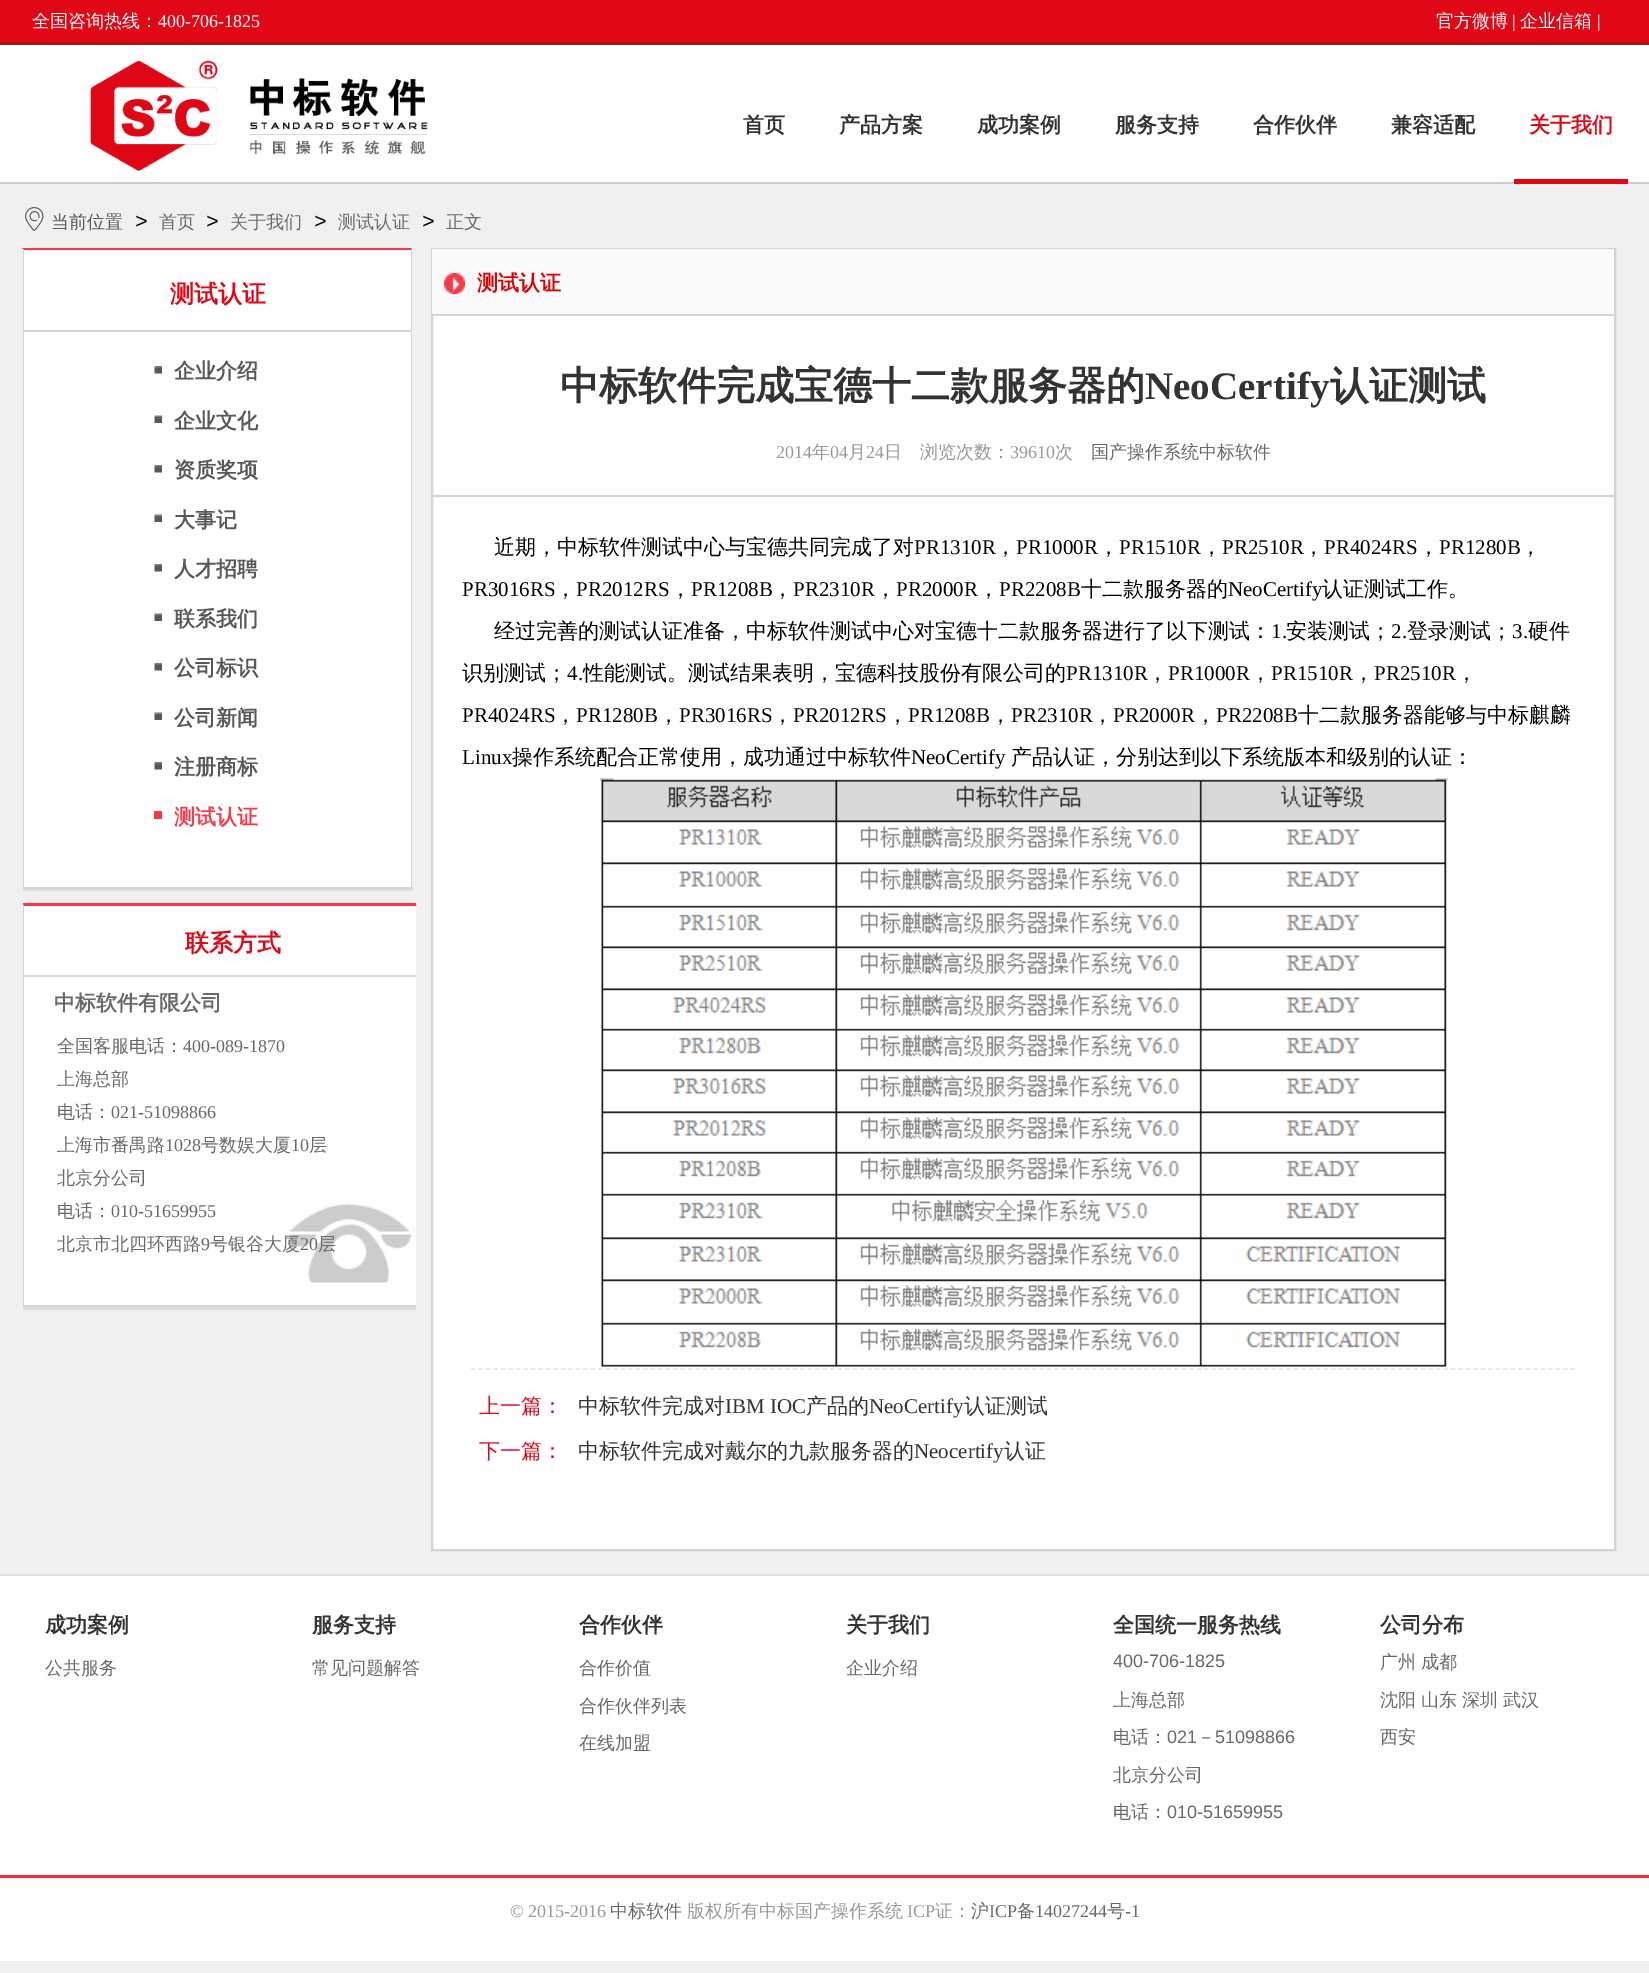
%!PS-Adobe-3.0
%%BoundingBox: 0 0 1649 1973
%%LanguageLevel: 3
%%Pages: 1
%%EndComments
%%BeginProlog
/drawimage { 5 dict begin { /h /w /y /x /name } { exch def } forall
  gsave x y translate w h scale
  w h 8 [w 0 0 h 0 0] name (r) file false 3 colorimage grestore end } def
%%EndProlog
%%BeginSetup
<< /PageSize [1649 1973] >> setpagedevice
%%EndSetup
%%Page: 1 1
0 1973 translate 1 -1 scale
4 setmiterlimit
0.941 setgray
0 0 1649 1973 rectfill
1 setgray
0 45 1649 137 rectfill
0.8 setgray
0 182 1649 2 rectfill
0.878 0.031 0.09 setrgbcolor
0 0 1649 42 rectfill
0.702 0.071 0.071 setrgbcolor
0 42 1649 3 rectfill
(images/1.raw) 90 60 338 111 drawimage
0.882 0.024 0.082 setrgbcolor
1514 179 114 5 rectfill
(images/2.raw) 25 207 19 24 drawimage
0.871 setgray
23 889 390 2 rectfill
1 setgray
24 251 387 636 rectfill
0.973 0.227 0.282 setrgbcolor
newpath 22 248 moveto 412 248 lineto 411 250 lineto 24 250 lineto closepath fill
0.831 setgray
newpath 412 248 moveto 412 888 lineto 411 886 lineto 411 250 lineto closepath fill
23 887 390 2 rectfill
gsave
23 248 393 1062 rectclip
newpath 22 888 moveto 22 248 lineto 24 250 lineto 24 886 lineto closepath fill
grestore
0.835 setgray
24 330 387 2 rectfill
(images/3.raw) 154 366 8 8 drawimage
(images/4.raw) 154 415 8 8 drawimage
(images/3.raw) 154 465 8 8 drawimage
(images/4.raw) 154 514 8 8 drawimage
(images/3.raw) 154 564 8 8 drawimage
(images/4.raw) 154 613 8 8 drawimage
(images/3.raw) 154 663 8 8 drawimage
(images/4.raw) 154 712 8 8 drawimage
(images/3.raw) 154 762 8 8 drawimage
0.973 0.227 0.282 setrgbcolor
154 811 8 8 rectfill
1 setgray
23 904 393 401 rectfill
0.871 setgray
23 1307 393 3 rectfill
gsave
23 248 393 1062 rectclip
0.973 0.227 0.282 setrgbcolor
newpath 22 903 moveto 442 903 lineto 441 906 lineto 24 906 lineto closepath fill
grestore
0.831 setgray
23 1305 393 2 rectfill
gsave
23 248 393 1062 rectclip
newpath 22 1306 moveto 22 903 lineto 24 906 lineto 24 1305 lineto closepath fill
grestore
0.835 setgray
24 975 392 2 rectfill
(images/5.raw) 289 1204 122 79 drawimage
1 setgray
433 316 1181 1233 rectfill
0.831 setgray
2 setlinewidth
432 249 1183 1301 rectstroke
0.98 setgray
432 249 1182 65 rectfill
0.831 setgray
432 314 1182 2 rectfill
(images/6.raw) 444 273 21 21 drawimage
432 495 1182 2 rectfill
(images/7.raw) 600 778 848 589 drawimage
0.902 setgray
1.5 setlinewidth
[4.5 2.98] 0 setdash
newpath 471 1369 moveto 1575 1369 lineto stroke
1 setgray
0 1576 1649 385 rectfill
0.878 setgray
0 1574 1649 2 rectfill
0.969 0.176 0.235 setrgbcolor
0 1875 1649 3 rectfill
/WenQuanYiZenHei-Medium [18 0 0 -18 0 0] selectfont
1 setgray
32 27 moveto (全国咨询热线：) show
/LiberationSerif-Regular [18 0 0 -18 0 0] selectfont
158 27 moveto (400-706-1825) show
/WenQuanYiZenHei-Medium [18 0 0 -18 0 0] selectfont
1436 27 moveto (官方微博) show
/LiberationSerif-Regular [18 0 0 -18 0 0] selectfont
1512 27 moveto (|) show
/WenQuanYiZenHei-Medium [18 0 0 -18 0 0] selectfont
1520 27 moveto (企业信箱) show
/LiberationSerif-Regular [18 0 0 -18 0 0] selectfont
1597 27 moveto (|) show
/WenQuanYiZenHei-Bold [21 0 0 -21 0 0] selectfont
0.2 setgray
743 132 moveto (首页) show
839 132 moveto (产品方案) show
977 132 moveto (成功案例) show
1115 132 moveto (服务支持) show
1253 132 moveto (合作伙伴) show
1391 132 moveto (兼容适配) show
0.878 0.031 0.09 setrgbcolor
1529 132 moveto (关于我们) show
/WenQuanYiZenHei-Medium [18 0 0 -18 0 0] selectfont
0.345 setgray
51 228 moveto (当前位置) show
/LiberationSans-Italic [21 0 0 -21 0 0] selectfont
0 setgray
135 228 moveto (>) show
/WenQuanYiZenHei-Medium [18 0 0 -18 0 0] selectfont
0.412 setgray
159 228 moveto (首页) show
/LiberationSans-Italic [21 0 0 -21 0 0] selectfont
0 setgray
206 228 moveto (>) show
/WenQuanYiZenHei-Medium [18 0 0 -18 0 0] selectfont
0.412 setgray
230 228 moveto (关于我们) show
/LiberationSans-Italic [21 0 0 -21 0 0] selectfont
0 setgray
314 228 moveto (>) show
/WenQuanYiZenHei-Medium [18 0 0 -18 0 0] selectfont
0.412 setgray
338 228 moveto (测试认证) show
/LiberationSans-Italic [21 0 0 -21 0 0] selectfont
0 setgray
422 228 moveto (>) show
/WenQuanYiZenHei-Medium [18 0 0 -18 0 0] selectfont
0.412 setgray
446 228 moveto (正文) show
/WenQuanYiZenHei-Bold [24 0 0 -24 0 0] selectfont
0.878 0.031 0.09 setrgbcolor
170 302 moveto (测试认证) show
/WenQuanYiZenHei-Bold [21 0 0 -21 0 0] selectfont
0.345 setgray
174 378 moveto (企业介绍) show
174 428 moveto (企业文化) show
174 477 moveto (资质奖项) show
174 527 moveto (大事记) show
174 576 moveto (人才招聘) show
174 626 moveto (联系我们) show
174 675 moveto (公司标识) show
174 725 moveto (公司新闻) show
174 774 moveto (注册商标) show
0.973 0.227 0.282 setrgbcolor
174 824 moveto (测试认证) show
/WenQuanYiZenHei-Bold [24 0 0 -24 0 0] selectfont
0.878 0.031 0.09 setrgbcolor
185 951 moveto (联系方式) show
/WenQuanYiZenHei-Bold [21 0 0 -21 0 0] selectfont
0.412 setgray
54 1010 moveto (中标软件有限公司) show
/WenQuanYiZenHei-Medium [18 0 0 -18 0 0] selectfont
57 1052 moveto (全国客服电话：) show
/LiberationSerif-Regular [18 0 0 -18 0 0] selectfont
183 1052 moveto (400-089-1870) show
/WenQuanYiZenHei-Medium [18 0 0 -18 0 0] selectfont
57 1085 moveto (上海总部) show
57 1118 moveto (电话：) show
/LiberationSerif-Regular [18 0 0 -18 0 0] selectfont
111 1118 moveto (021-51098866) show
/WenQuanYiZenHei-Medium [18 0 0 -18 0 0] selectfont
57 1151 moveto (上海市番禺路) show
/LiberationSerif-Regular [18 0 0 -18 0 0] selectfont
165 1151 moveto (1028) show
/WenQuanYiZenHei-Medium [18 0 0 -18 0 0] selectfont
201 1151 moveto (号数娱大厦) show
/LiberationSerif-Regular [18 0 0 -18 0 0] selectfont
291 1151 moveto (10) show
/WenQuanYiZenHei-Medium [18 0 0 -18 0 0] selectfont
309 1151 moveto (层) show
57 1184 moveto (北京分公司) show
57 1217 moveto (电话：) show
/LiberationSerif-Regular [18 0 0 -18 0 0] selectfont
111 1217 moveto (010-51659955) show
/WenQuanYiZenHei-Medium [18 0 0 -18 0 0] selectfont
57 1250 moveto (北京市北四环西路) show
/LiberationSerif-Regular [18 0 0 -18 0 0] selectfont
201 1250 moveto (9) show
/WenQuanYiZenHei-Medium [18 0 0 -18 0 0] selectfont
210 1250 moveto (号银谷大厦) show
/LiberationSerif-Regular [18 0 0 -18 0 0] selectfont
300 1250 moveto (20) show
/WenQuanYiZenHei-Medium [18 0 0 -18 0 0] selectfont
318 1250 moveto (层) show
/WenQuanYiZenHei-Bold [21 0 0 -21 0 0] selectfont
0.859 0 0.02 setrgbcolor
477 290 moveto (测试认证) show
/WenQuanYiZenHei-Bold [39 0 0 -39 0 0] selectfont
0.2 setgray
560 399 moveto (中标软件完成宝德十二款服务器的) show
/LiberationSerif-Bold [39 0 0 -39 0 0] selectfont
1145 399 moveto (NeoCertify) show
/WenQuanYiZenHei-Bold [39 0 0 -39 0 0] selectfont
1330 399 moveto (认证测试) show
/LiberationSerif-Regular [18 0 0 -18 0 0] selectfont
0.6 setgray
776 458 moveto (2014) show
/WenQuanYiZenHei-Medium [18 0 0 -18 0 0] selectfont
812 458 moveto (年) show
/LiberationSerif-Regular [18 0 0 -18 0 0] selectfont
830 458 moveto (04) show
/WenQuanYiZenHei-Medium [18 0 0 -18 0 0] selectfont
848 458 moveto (月) show
/LiberationSerif-Regular [18 0 0 -18 0 0] selectfont
866 458 moveto (24) show
/WenQuanYiZenHei-Medium [18 0 0 -18 0 0] selectfont
884 458 moveto (日) show
920 458 moveto (浏览次数：) show
/LiberationSerif-Regular [18 0 0 -18 0 0] selectfont
1010 458 moveto (39610) show
/WenQuanYiZenHei-Medium [18 0 0 -18 0 0] selectfont
1055 458 moveto (次) show
0.412 setgray
1091 458 moveto (国产操作系统中标软件) show
/WenQuanYiZenHei-Medium [21 0 0 -21 0 0] selectfont
0 setgray
494 554 moveto (近期，中标软件测试中心与宝德共同完成了对) show
/LiberationSerif-Regular [21 0 0 -21 0 0] selectfont
914 554 moveto (PR1310R) show
/WenQuanYiZenHei-Medium [21 0 0 -21 0 0] selectfont
995 554 moveto (，) show
/LiberationSerif-Regular [21 0 0 -21 0 0] selectfont
1016 554 moveto (PR1000R) show
/WenQuanYiZenHei-Medium [21 0 0 -21 0 0] selectfont
1098 554 moveto (，) show
/LiberationSerif-Regular [21 0 0 -21 0 0] selectfont
1119 554 moveto (PR1510R) show
/WenQuanYiZenHei-Medium [21 0 0 -21 0 0] selectfont
1201 554 moveto (，) show
/LiberationSerif-Regular [21 0 0 -21 0 0] selectfont
1222 554 moveto (PR2510R) show
/WenQuanYiZenHei-Medium [21 0 0 -21 0 0] selectfont
1303 554 moveto (，) show
/LiberationSerif-Regular [21 0 0 -21 0 0] selectfont
1324 554 moveto (PR4024RS) show
/WenQuanYiZenHei-Medium [21 0 0 -21 0 0] selectfont
1418 554 moveto (，) show
/LiberationSerif-Regular [21 0 0 -21 0 0] selectfont
1439 554 moveto (PR1280B) show
/WenQuanYiZenHei-Medium [21 0 0 -21 0 0] selectfont
1520 554 moveto (，) show
/LiberationSerif-Regular [21 0 0 -21 0 0] selectfont
462 596 moveto (PR3016RS) show
/WenQuanYiZenHei-Medium [21 0 0 -21 0 0] selectfont
555 596 moveto (，) show
/LiberationSerif-Regular [21 0 0 -21 0 0] selectfont
576 596 moveto (PR2012RS) show
/WenQuanYiZenHei-Medium [21 0 0 -21 0 0] selectfont
670 596 moveto (，) show
/LiberationSerif-Regular [21 0 0 -21 0 0] selectfont
691 596 moveto (PR1208B) show
/WenQuanYiZenHei-Medium [21 0 0 -21 0 0] selectfont
772 596 moveto (，) show
/LiberationSerif-Regular [21 0 0 -21 0 0] selectfont
793 596 moveto (PR2310R) show
/WenQuanYiZenHei-Medium [21 0 0 -21 0 0] selectfont
875 596 moveto (，) show
/LiberationSerif-Regular [21 0 0 -21 0 0] selectfont
896 596 moveto (PR2000R) show
/WenQuanYiZenHei-Medium [21 0 0 -21 0 0] selectfont
978 596 moveto (，) show
/LiberationSerif-Regular [21 0 0 -21 0 0] selectfont
999 596 moveto (PR2208B) show
/WenQuanYiZenHei-Medium [21 0 0 -21 0 0] selectfont
1081 596 moveto (十二款服务器的) show
/LiberationSerif-Regular [21 0 0 -21 0 0] selectfont
1228 596 moveto (NeoCertify) show
/WenQuanYiZenHei-Medium [21 0 0 -21 0 0] selectfont
1322 596 moveto (认证测试工作。) show
494 638 moveto (经过完善的测试认证准备，中标软件测试中心对宝德十二款服务器进行了以下测试：) show
/LiberationSerif-Regular [21 0 0 -21 0 0] selectfont
1271 638 moveto (1.) show
/WenQuanYiZenHei-Medium [21 0 0 -21 0 0] selectfont
1286 638 moveto (安装测试；) show
/LiberationSerif-Regular [21 0 0 -21 0 0] selectfont
1391 638 moveto (2.) show
/WenQuanYiZenHei-Medium [21 0 0 -21 0 0] selectfont
1407 638 moveto (登录测试；) show
/LiberationSerif-Regular [21 0 0 -21 0 0] selectfont
1512 638 moveto (3.) show
/WenQuanYiZenHei-Medium [21 0 0 -21 0 0] selectfont
1528 638 moveto (硬件) show
462 680 moveto (识别测试；) show
/LiberationSerif-Regular [21 0 0 -21 0 0] selectfont
567 680 moveto (4.) show
/WenQuanYiZenHei-Medium [21 0 0 -21 0 0] selectfont
583 680 moveto (性能测试。测试结果表明，宝德科技股份有限公司的) show
/LiberationSerif-Regular [21 0 0 -21 0 0] selectfont
1066 680 moveto (PR1310R) show
/WenQuanYiZenHei-Medium [21 0 0 -21 0 0] selectfont
1147 680 moveto (，) show
/LiberationSerif-Regular [21 0 0 -21 0 0] selectfont
1168 680 moveto (PR1000R) show
/WenQuanYiZenHei-Medium [21 0 0 -21 0 0] selectfont
1250 680 moveto (，) show
/LiberationSerif-Regular [21 0 0 -21 0 0] selectfont
1271 680 moveto (PR1510R) show
/WenQuanYiZenHei-Medium [21 0 0 -21 0 0] selectfont
1353 680 moveto (，) show
/LiberationSerif-Regular [21 0 0 -21 0 0] selectfont
1374 680 moveto (PR2510R) show
/WenQuanYiZenHei-Medium [21 0 0 -21 0 0] selectfont
1456 680 moveto (，) show
/LiberationSerif-Regular [21 0 0 -21 0 0] selectfont
462 722 moveto (PR4024RS) show
/WenQuanYiZenHei-Medium [21 0 0 -21 0 0] selectfont
555 722 moveto (，) show
/LiberationSerif-Regular [21 0 0 -21 0 0] selectfont
576 722 moveto (PR1280B) show
/WenQuanYiZenHei-Medium [21 0 0 -21 0 0] selectfont
658 722 moveto (，) show
/LiberationSerif-Regular [21 0 0 -21 0 0] selectfont
679 722 moveto (PR3016RS) show
/WenQuanYiZenHei-Medium [21 0 0 -21 0 0] selectfont
772 722 moveto (，) show
/LiberationSerif-Regular [21 0 0 -21 0 0] selectfont
793 722 moveto (PR2012RS) show
/WenQuanYiZenHei-Medium [21 0 0 -21 0 0] selectfont
887 722 moveto (，) show
/LiberationSerif-Regular [21 0 0 -21 0 0] selectfont
908 722 moveto (PR1208B) show
/WenQuanYiZenHei-Medium [21 0 0 -21 0 0] selectfont
990 722 moveto (，) show
/LiberationSerif-Regular [21 0 0 -21 0 0] selectfont
1011 722 moveto (PR2310R) show
/WenQuanYiZenHei-Medium [21 0 0 -21 0 0] selectfont
1092 722 moveto (，) show
/LiberationSerif-Regular [21 0 0 -21 0 0] selectfont
1113 722 moveto (PR2000R) show
/WenQuanYiZenHei-Medium [21 0 0 -21 0 0] selectfont
1195 722 moveto (，) show
/LiberationSerif-Regular [21 0 0 -21 0 0] selectfont
1216 722 moveto (PR2208B) show
/WenQuanYiZenHei-Medium [21 0 0 -21 0 0] selectfont
1298 722 moveto (十二款服务器能够与中标麒麟) show
/LiberationSerif-Regular [21 0 0 -21 0 0] selectfont
462 764 moveto (Linux) show
/WenQuanYiZenHei-Medium [21 0 0 -21 0 0] selectfont
512 764 moveto (操作系统配合正常使用，成功通过中标软件) show
/LiberationSerif-Regular [21 0 0 -21 0 0] selectfont
911 764 moveto (NeoCertify) show
/WenQuanYiZenHei-Medium [21 0 0 -21 0 0] selectfont
1011 764 moveto (产品认证，分别达到以下系统版本和级别的认证：) show
0.878 0.031 0.09 setrgbcolor
479 1413 moveto (上一篇：) show
0.2 setgray
578 1413 moveto (中标软件完成对) show
/LiberationSerif-Regular [21 0 0 -21 0 0] selectfont
725 1413 moveto (IBM IOC) show
/WenQuanYiZenHei-Medium [21 0 0 -21 0 0] selectfont
806 1413 moveto (产品的) show
/LiberationSerif-Regular [21 0 0 -21 0 0] selectfont
869 1413 moveto (NeoCertify) show
/WenQuanYiZenHei-Medium [21 0 0 -21 0 0] selectfont
964 1413 moveto (认证测试) show
0.878 0.031 0.09 setrgbcolor
479 1458 moveto (下一篇：) show
0.2 setgray
578 1458 moveto (中标软件完成对戴尔的九款服务器的) show
/LiberationSerif-Regular [21 0 0 -21 0 0] selectfont
914 1458 moveto (Neocertify) show
/WenQuanYiZenHei-Medium [21 0 0 -21 0 0] selectfont
1004 1458 moveto (认证) show
/WenQuanYiZenHei-Bold [21 0 0 -21 0 0] selectfont
45 1632 moveto (成功案例) show
/WenQuanYiZenHei-Medium [18 0 0 -18 0 0] selectfont
0.412 setgray
45 1674 moveto (公共服务) show
/WenQuanYiZenHei-Bold [21 0 0 -21 0 0] selectfont
0.2 setgray
312 1632 moveto (服务支持) show
/WenQuanYiZenHei-Medium [18 0 0 -18 0 0] selectfont
0.412 setgray
312 1674 moveto (常见问题解答) show
/WenQuanYiZenHei-Bold [21 0 0 -21 0 0] selectfont
0.2 setgray
579 1632 moveto (合作伙伴) show
/WenQuanYiZenHei-Medium [18 0 0 -18 0 0] selectfont
0.412 setgray
579 1674 moveto (合作价值) show
579 1712 moveto (合作伙伴列表) show
579 1749 moveto (在线加盟) show
/WenQuanYiZenHei-Bold [21 0 0 -21 0 0] selectfont
0.2 setgray
846 1632 moveto (关于我们) show
/WenQuanYiZenHei-Medium [18 0 0 -18 0 0] selectfont
0.412 setgray
846 1674 moveto (企业介绍) show
/WenQuanYiZenHei-Bold [21 0 0 -21 0 0] selectfont
0.2 setgray
1113 1632 moveto (全国统一服务热线) show
/LiberationSans-Regular [18 0 0 -18 0 0] selectfont
0.412 setgray
1113 1667 moveto (400-706-1825) show
/WenQuanYiZenHei-Medium [18 0 0 -18 0 0] selectfont
1113 1706 moveto (上海总部) show
1113 1743 moveto (电话：) show
/LiberationSans-Regular [18 0 0 -18 0 0] selectfont
1167 1743 moveto (021) show
/WenQuanYiZenHei-Medium [18 0 0 -18 0 0] selectfont
1197 1743 moveto (－) show
/LiberationSans-Regular [18 0 0 -18 0 0] selectfont
1215 1743 moveto (51098866) show
/WenQuanYiZenHei-Medium [18 0 0 -18 0 0] selectfont
1113 1781 moveto (北京分公司) show
1113 1818 moveto (电话：) show
/LiberationSans-Regular [18 0 0 -18 0 0] selectfont
1167 1818 moveto (010-51659955) show
/WenQuanYiZenHei-Bold [21 0 0 -21 0 0] selectfont
0.2 setgray
1380 1632 moveto (公司分布) show
/WenQuanYiZenHei-Medium [18 0 0 -18 0 0] selectfont
0.412 setgray
1380 1668 moveto -0.5 0 32 (广州 成都) widthshow
1380 1706 moveto -0.5 0 32 (沈阳 山东 深圳 武汉) widthshow
1380 1743 moveto (西安) show
/LiberationSerif-Regular [18 0 0 -18 0 0] selectfont
0.6 setgray
510 1917 moveto (© 2015-2016) show
/WenQuanYiZenHei-Medium [18 0 0 -18 0 0] selectfont
0.412 setgray
610 1917 moveto (中标软件) show
0.6 setgray
687 1917 moveto (版权所有中标国产操作系统) show
/LiberationSerif-Regular [18 0 0 -18 0 0] selectfont
907 1917 moveto (ICP) show
/WenQuanYiZenHei-Medium [18 0 0 -18 0 0] selectfont
935 1917 moveto (证：) show
0.412 setgray
971 1917 moveto (沪) show
/LiberationSerif-Regular [18 0 0 -18 0 0] selectfont
989 1917 moveto (ICP) show
/WenQuanYiZenHei-Medium [18 0 0 -18 0 0] selectfont
1017 1917 moveto (备) show
/LiberationSerif-Regular [18 0 0 -18 0 0] selectfont
1035 1917 moveto (14027244) show
/WenQuanYiZenHei-Medium [18 0 0 -18 0 0] selectfont
1107 1917 moveto (号) show
/LiberationSerif-Regular [18 0 0 -18 0 0] selectfont
1125 1917 moveto (-1) show
showpage
%%EOF
